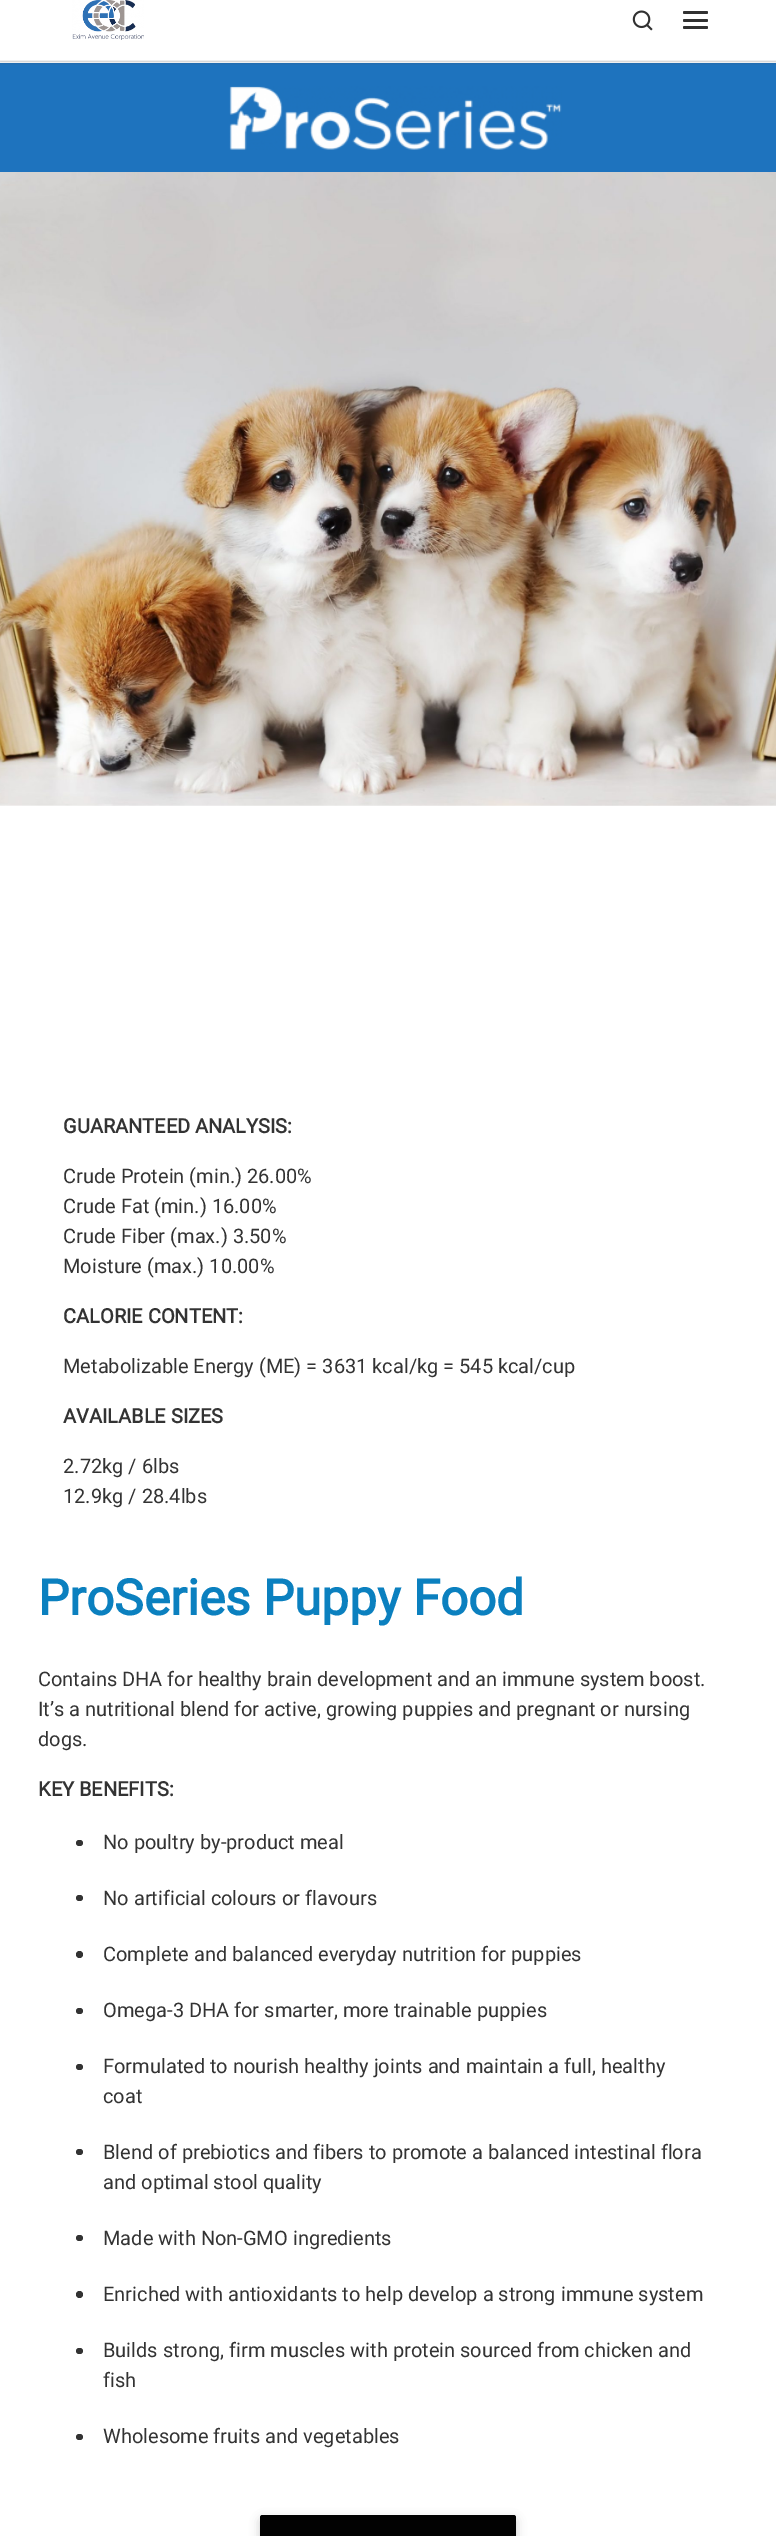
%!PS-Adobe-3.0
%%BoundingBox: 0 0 776 2536
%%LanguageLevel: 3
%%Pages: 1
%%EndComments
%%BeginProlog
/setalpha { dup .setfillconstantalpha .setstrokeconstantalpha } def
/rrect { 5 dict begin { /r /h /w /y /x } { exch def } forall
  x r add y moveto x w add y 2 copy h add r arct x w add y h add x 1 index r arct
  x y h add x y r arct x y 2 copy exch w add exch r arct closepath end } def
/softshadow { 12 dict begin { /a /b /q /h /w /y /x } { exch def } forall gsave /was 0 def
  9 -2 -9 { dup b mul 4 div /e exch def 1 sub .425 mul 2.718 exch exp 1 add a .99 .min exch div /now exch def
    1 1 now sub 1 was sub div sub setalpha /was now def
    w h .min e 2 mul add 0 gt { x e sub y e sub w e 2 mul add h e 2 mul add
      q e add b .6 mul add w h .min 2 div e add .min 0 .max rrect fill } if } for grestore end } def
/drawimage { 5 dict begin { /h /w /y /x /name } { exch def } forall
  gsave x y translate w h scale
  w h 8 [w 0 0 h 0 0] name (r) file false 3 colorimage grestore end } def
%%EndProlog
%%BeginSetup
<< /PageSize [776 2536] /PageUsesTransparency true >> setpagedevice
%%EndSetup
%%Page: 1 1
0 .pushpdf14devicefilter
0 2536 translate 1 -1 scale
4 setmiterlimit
1 setgray
0 0 776 2536 rectfill
0.118 0.451 0.745 setrgbcolor
0 63 776 109 rectfill
0.4 setgray
0 -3 776 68 0 1 0.08 softshadow
1 setgray
0 0 776 63 rectfill
0.925 setgray
0 61 776 1 rectfill
0.15 setalpha
1 setgray
0 61 776 1 rectfill
gsave
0 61 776 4 rectclip
1 setalpha
0 setgray
0 -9 776 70 0 3 0.2 softshadow
grestore
1 setalpha
(images/1.raw) 72 0 72 40 drawimage
(images/2.raw) 632 10 21 21 drawimage
0.192 setgray
683 11 25 3 1.5 rrect fill
683 19 25 3 1.5 rrect fill
683 26 25 3 1.5 rrect fill
0.941 setgray
0 60 776 1 rectfill
(images/3.raw) 229 86 333 64 drawimage
(images/4.raw) 0 172 776 634 drawimage
0.2 setgray
76 1840 7 6 3 rrect fill
76 1895 7 6 3 rrect fill
newpath 79.5 1954.5 3.5 0 360 arc closepath fill
76 2008 7 6 3 rrect fill
76 2064 7 6 3 rrect fill
76 2149 7 6 3 rrect fill
76 2235 7 6 3 rrect fill
newpath 79.5 2294.5 3.5 0 360 arc closepath fill
76 2348 7 6 3 rrect fill
76 2434 7 6 3 rrect fill
0 setgray
260 2519 256 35 2.5 5 0.2 softshadow
0.008 setgray
260 2515 256 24 2.5 rrect fill
/Roboto-Bold [20 0 0 -20 0 0] selectfont
0.2 setgray
63 1133 moveto (GUARANTEED ANALYSIS:) show
/Roboto-Regular [20 0 0 -20 0 0] selectfont
63 1183 moveto (Crude Protein \(min.\) 26.00%) show
63 1213 moveto (Crude Fat \(min.\) 16.00%) show
63 1243 moveto (Crude Fiber \(max.\) 3.50%) show
63 1273 moveto (Moisture \(max.\) 10.00%) show
/Roboto-Bold [20 0 0 -20 0 0] selectfont
63 1323 moveto (CALORIE CONTENT:) show
/Roboto-Regular [20 0 0 -20 0 0] selectfont
63 1373 moveto (Metabolizable Energy \(ME\) = 3631 kcal/kg = 545 kcal/cup) show
/Roboto-Bold [20 0 0 -20 0 0] selectfont
63 1423 moveto (AVAILABLE SIZES) show
/Roboto-Regular [20 0 0 -20 0 0] selectfont
63 1473 moveto (2.72kg / 6lbs) show
63 1503 moveto (12.9kg / 28.4lbs) show
/Roboto-Bold [49.5 0 0 -49.5 0 0] selectfont
0.043 0.502 0.749 setrgbcolor
38 1615 moveto (ProSeries Puppy Food) show
/Roboto-Regular [20 0 0 -20 0 0] selectfont
0.2 setgray
38 1686 moveto (Contains DHA for healthy brain development and an immune system boost.) show
38 1716 moveto (It’s a nutritional blend for active, growing puppies and pregnant or nursing) show
38 1746 moveto (dogs.) show
/Roboto-Bold [20 0 0 -20 0 0] selectfont
38 1796 moveto (KEY BENEFITS:) show
/Roboto-Regular [20 0 0 -20 0 0] selectfont
103 1849 moveto (No poultry by-product meal) show
103 1905 moveto (No artificial colours or flavours) show
103 1961 moveto (Complete and balanced everyday nutrition for puppies) show
103 2017 moveto (Omega-3 DHA for smarter, more trainable puppies) show
103 2073 moveto (Formulated to nourish healthy joints and maintain a full, healthy) show
103 2103 moveto (coat) show
103 2159 moveto (Blend of prebiotics and fibers to promote a balanced intestinal flora) show
103 2189 moveto (and optimal stool quality) show
103 2245 moveto (Made with Non-GMO ingredients) show
103 2301 moveto (Enriched with antioxidants to help develop a strong immune system) show
103 2357 moveto (Builds strong, firm muscles with protein sourced from chicken and) show
103 2387 moveto (fish) show
103 2443 moveto (Wholesome fruits and vegetables) show
.poppdf14devicefilter showpage
%%EOF
